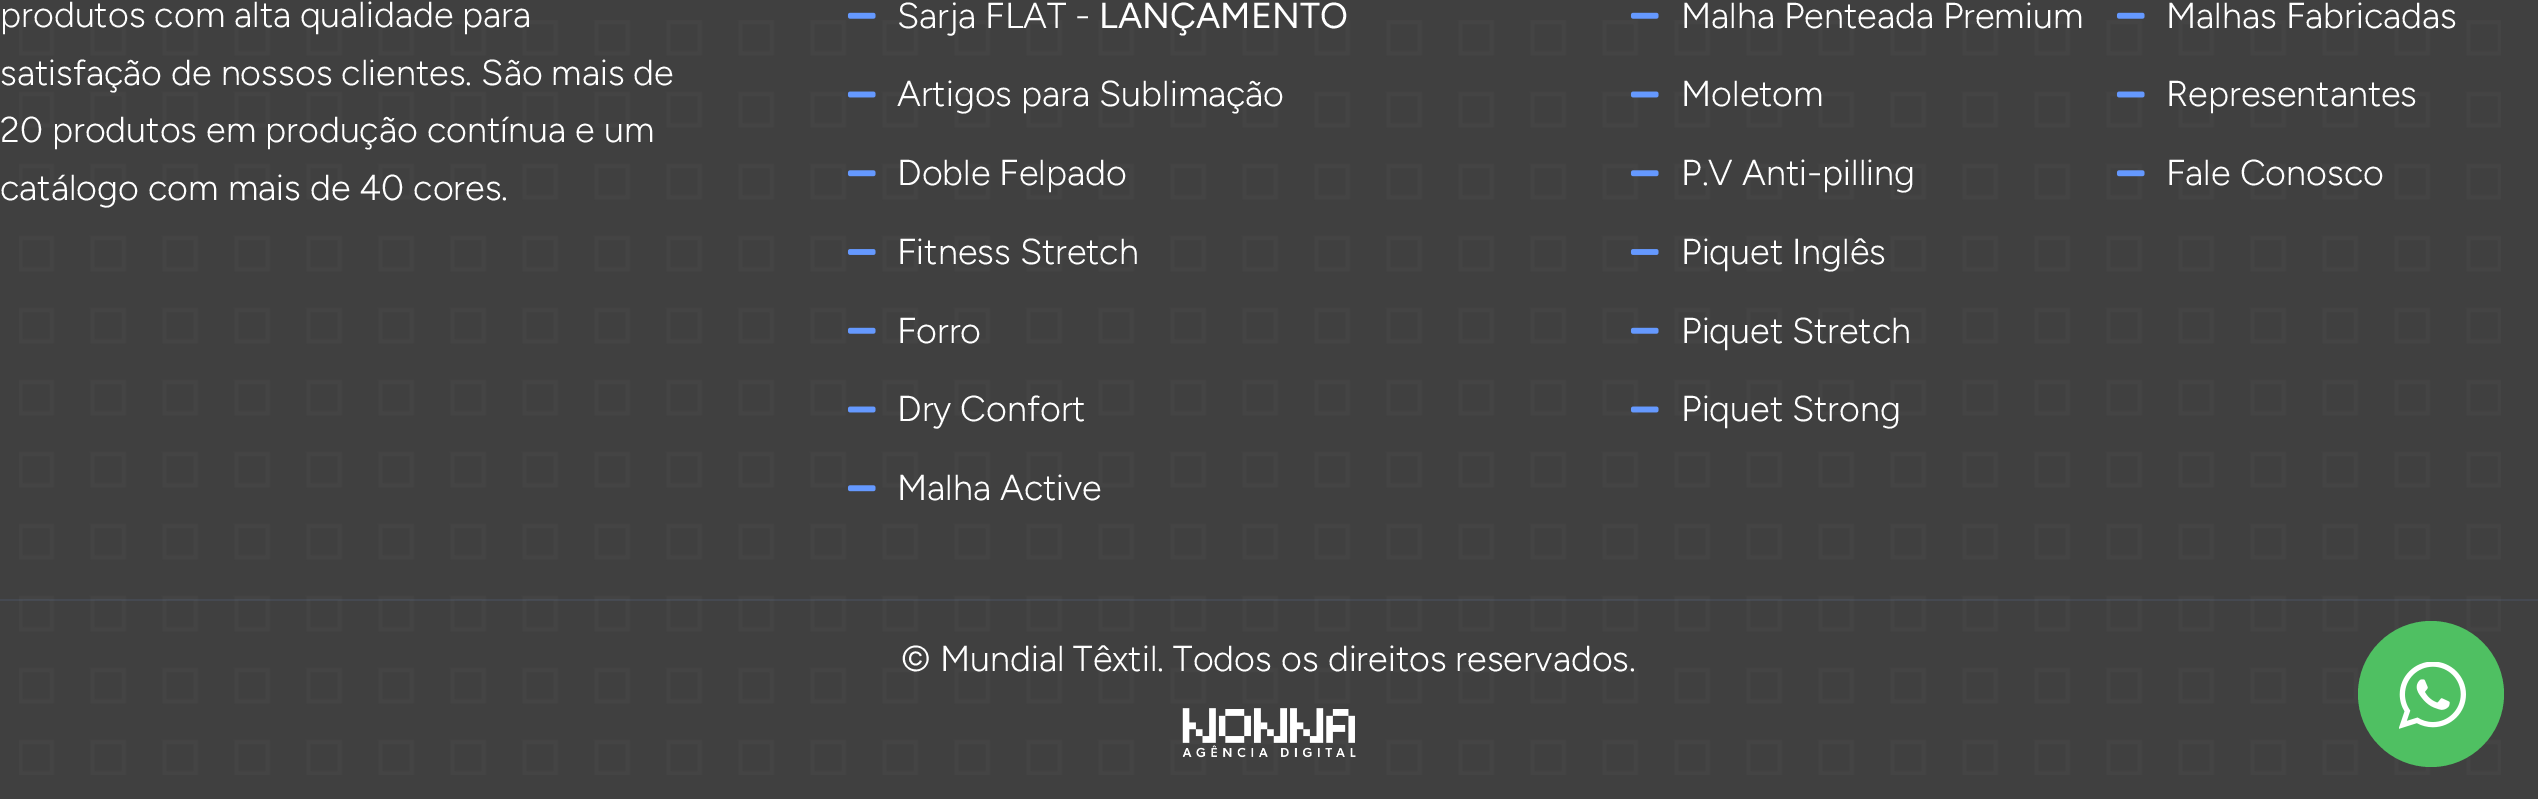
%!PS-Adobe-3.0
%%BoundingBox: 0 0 2538 799
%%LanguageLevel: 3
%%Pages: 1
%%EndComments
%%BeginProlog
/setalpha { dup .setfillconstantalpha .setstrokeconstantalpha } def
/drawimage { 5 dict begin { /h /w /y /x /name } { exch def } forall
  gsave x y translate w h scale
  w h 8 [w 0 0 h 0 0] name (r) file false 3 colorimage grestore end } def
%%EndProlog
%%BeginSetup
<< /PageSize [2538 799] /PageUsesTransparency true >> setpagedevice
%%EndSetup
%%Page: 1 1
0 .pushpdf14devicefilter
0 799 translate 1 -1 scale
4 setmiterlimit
0.251 setgray
0 0 2538 799 rectfill
(images/1.raw) 847 12 29 7 drawimage
(images/13.raw) 19 20 2482 755 drawimage
(images/2.raw) 847 91 29 7 drawimage
(images/3.raw) 847 170 29 7 drawimage
(images/4.raw) 847 249 29 6 drawimage
(images/1.raw) 847 327 29 7 drawimage
(images/2.raw) 847 406 29 7 drawimage
(images/3.raw) 847 485 29 7 drawimage
(images/1.raw) 1630 12 29 7 drawimage
(images/5.raw) 1630 91 29 7 drawimage
(images/6.raw) 1630 170 29 7 drawimage
(images/7.raw) 1630 249 29 6 drawimage
(images/8.raw) 1630 327 29 7 drawimage
(images/9.raw) 1630 406 29 7 drawimage
(images/1.raw) 2116 12 29 7 drawimage
(images/10.raw) 2116 91 29 7 drawimage
(images/11.raw) 2116 170 29 7 drawimage
0.12 setalpha
0.424 0.557 0.788 setrgbcolor
0 599 2538 2 rectfill
1 setalpha
(images/12.raw) 1182 708 174 50 drawimage
0.31 0.753 0.384 setrgbcolor
newpath 2431 694 73 0 360 arc closepath fill
(images/14.raw) 2399 662 67 67 drawimage
/Figtree-Light [36 0 0 -36 0 0] selectfont
1 setgray
0 27 moveto (produtos com alta qualidade para) show
0 85 moveto (satisfação de nossos clientes. São mais de) show
0 142 moveto (20 produtos em produção contínua e um) show
0 200 moveto (catálogo com mais de 40 cores.) show
897 28 moveto (Sarja FLAT -) show
/Figtree-Regular [36 0 0 -36 0 0] selectfont
1099 28 moveto (LANÇAMENTO) show
/Figtree-Light [36 0 0 -36 0 0] selectfont
897 106 moveto (Artigos para Sublimação) show
897 185 moveto (Doble Felpado) show
897 264 moveto (Fitness Stretch) show
897 343 moveto (Forro) show
897 421 moveto (Dry Confort) show
897 500 moveto (Malha Active) show
1681 28 moveto (Malha Penteada Premium) show
1681 106 moveto (Moletom) show
1681 185 moveto (P.V Anti-pilling) show
1681 264 moveto (Piquet Inglês) show
1681 343 moveto (Piquet Stretch) show
1681 421 moveto (Piquet Strong) show
2166 28 moveto (Malhas Fabricadas) show
2166 106 moveto (Representantes) show
2166 185 moveto (Fale Conosco) show
901 671 moveto (© Mundial Têxtil. Todos os direitos reservados.) show
.poppdf14devicefilter showpage
%%EOF
